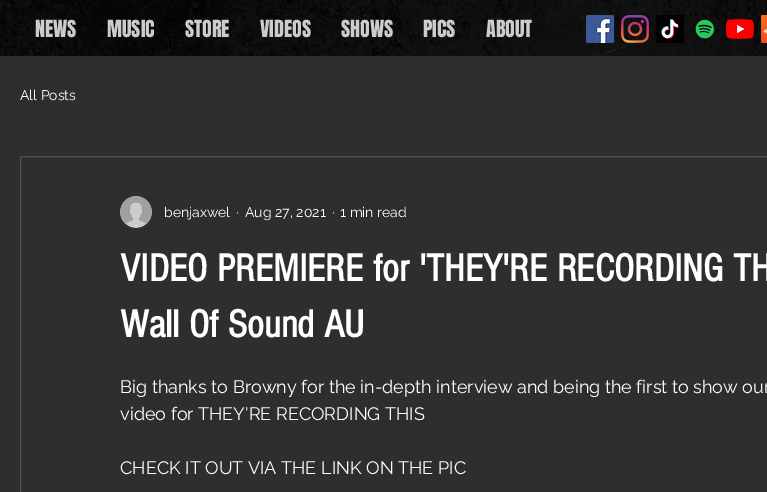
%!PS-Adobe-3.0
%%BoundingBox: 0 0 767 492
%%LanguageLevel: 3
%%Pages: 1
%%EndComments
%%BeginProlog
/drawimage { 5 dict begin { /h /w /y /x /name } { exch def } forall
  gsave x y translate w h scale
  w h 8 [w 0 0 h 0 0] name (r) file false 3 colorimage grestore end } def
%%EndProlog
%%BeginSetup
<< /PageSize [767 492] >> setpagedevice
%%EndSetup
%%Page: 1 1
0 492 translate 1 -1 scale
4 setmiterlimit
1 setgray
0 0 767 492 rectfill
(images/1.raw) 0 0 767 56 drawimage
(images/2.raw) 586 15 28 28 drawimage
(images/3.raw) 621 15 28 28 drawimage
(images/4.raw) 656 15 28 28 drawimage
(images/5.raw) 695 19 20 20 drawimage
(images/6.raw) 726 19 28 20 drawimage
(images/7.raw) 761 15 6 28 drawimage
0.184 0.18 0.18 setrgbcolor
0 56 767 436 rectfill
0.329 0.322 0.322 setrgbcolor
20.5 156.5 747 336 rectstroke
(images/8.raw) 120 196 32 32 drawimage
/Anton-Regular [20 0 0 -20 0 0] selectfont
0.8 setgray
35 37 moveto (NEWS) show
107 37 moveto (MUSIC) show
185 37 moveto (STORE) show
260 37 moveto (VIDEOS) show
341 37 moveto (SHOWS) show
423 37 moveto (PICS) show
486 37 moveto (ABOUT) show
/Raleway-Regular [14 0 0 -14 0 0] selectfont
1 setgray
20 100 moveto (All Posts) show
164 217 moveto (benjaxwel) show
236 217 moveto (·) show
245 217 moveto (Aug 27, 2021) show
332 217 moveto (·) show
340 217 moveto (1 min read) show
/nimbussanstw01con-Bold [40 0 0 -40 0 0] selectfont
120 281 moveto (VIDEO PREMIERE for 'THEY'RE RECORDING TH) show
120 337 moveto (Wall Of Sound AU) show
/Raleway-Regular [18 0 0 -18 0 0] selectfont
120 393 moveto (Big thanks to Browny for the in-depth interview and being the first to show our) show
120 420 moveto (video for THEY'RE RECORDING THIS) show
120 474 moveto (CHECK IT OUT VIA THE LINK ON THE PIC) show
showpage
%%EOF
